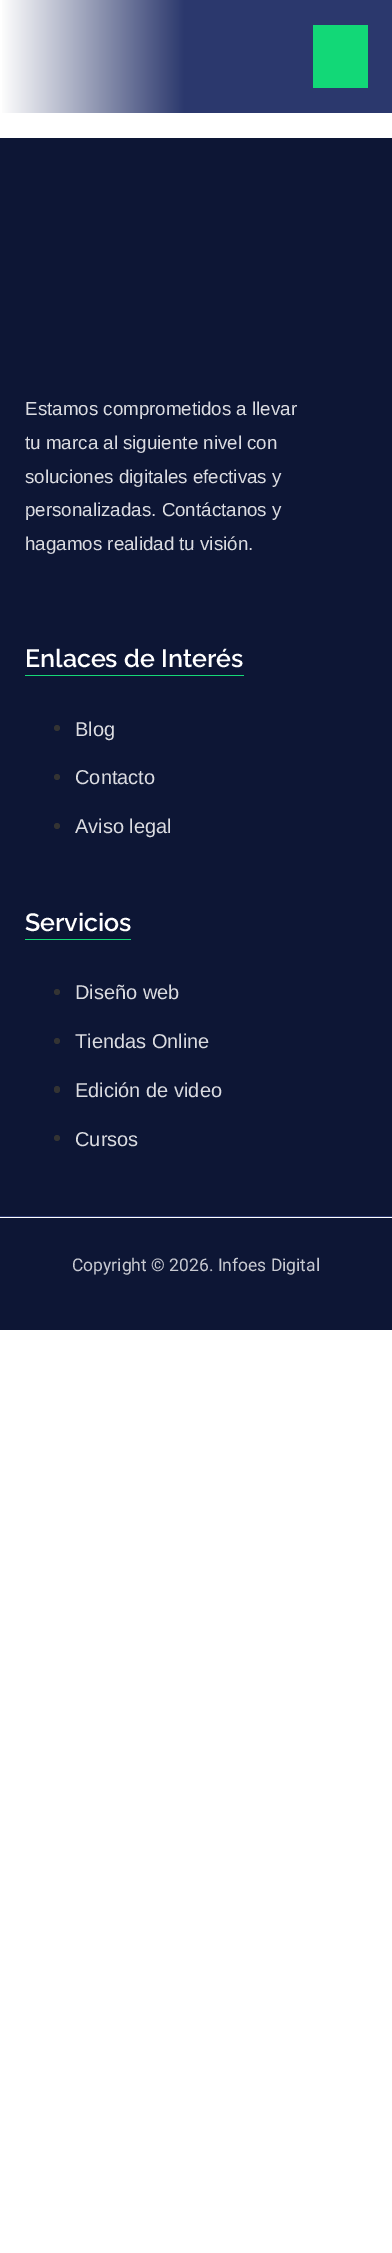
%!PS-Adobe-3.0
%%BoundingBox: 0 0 392 2253
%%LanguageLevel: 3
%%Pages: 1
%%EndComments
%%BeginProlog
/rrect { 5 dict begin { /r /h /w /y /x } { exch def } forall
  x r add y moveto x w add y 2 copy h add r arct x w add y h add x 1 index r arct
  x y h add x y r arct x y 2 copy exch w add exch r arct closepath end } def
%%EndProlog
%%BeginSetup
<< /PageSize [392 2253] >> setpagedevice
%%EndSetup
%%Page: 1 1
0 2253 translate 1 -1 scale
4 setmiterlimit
1 setgray
0 0 392 2253 rectfill
gsave newpath 2 0 moveto 392 0 lineto 392 113 lineto 2 113 lineto closepath clip newpath
<< /ShadingType 2 /ColorSpace /DeviceRGB /Coords [0 56 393 56] /Extend [true true] /Function << /FunctionType 3 /Domain [0 1] /Functions [<< /FunctionType 2 /Domain [0 1] /C0 [1 1 1] /C1 [0.169 0.22 0.427] /N 1 >> << /FunctionType 2 /Domain [0 1] /C0 [0.169 0.22 0.427] /C1 [0.169 0.22 0.427] /N 1 >>] /Bounds [0.47] /Encode [0 1 0 1] >> >> shfill grestore
0.071 0.847 0.467 setrgbcolor
313 25 55 63 rectfill
0.051 0.086 0.208 setrgbcolor
0 138 392 1078 rectfill
0.086 0.847 0.467 setrgbcolor
25 675 219 1 rectfill
0.2 setgray
newpath 57 728 3 0 360 arc closepath fill
newpath 57 777 3 0 360 arc closepath fill
newpath 57 826 3 0 360 arc closepath fill
0.086 0.847 0.467 setrgbcolor
25 939 106 1 rectfill
0.2 setgray
newpath 57 992 3 0 360 arc closepath fill
newpath 57 1041 3 0 360 arc closepath fill
54 1086 6 7 3 rrect fill
newpath 57 1138 3 0 360 arc closepath fill
0.051 0.086 0.208 setrgbcolor
0 1218 392 112 rectfill
0.169 0.22 0.427 setrgbcolor
0 1216 392 1 rectfill
/LiberationSans-Regular [18.75 0 0 -18.75 0 0] selectfont
0.859 0.863 0.882 setrgbcolor
25 415 moveto (Estamos comprometidos a llevar) show
25 449 moveto (tu marca al siguiente nivel con) show
25 483 moveto (soluciones digitales efectivas y) show
25 516 moveto (personalizadas. Contáctanos y) show
25 550 moveto (hagamos realidad tu visión.) show
/Raleway-SemiBold [25 0 0 -25 0 0] selectfont
1 setgray
25 667 moveto (Enlaces de Interés) show
/LiberationSans-Regular [20 0 0 -20 0 0] selectfont
0.859 0.863 0.882 setrgbcolor
75 736 moveto (Blog) show
75 784 moveto (Contacto) show
75 833 moveto (Aviso legal) show
/Raleway-SemiBold [25 0 0 -25 0 0] selectfont
1 setgray
25 931 moveto (Servicios) show
/LiberationSans-Regular [20 0 0 -20 0 0] selectfont
0.859 0.863 0.882 setrgbcolor
75 999 moveto (Diseño web) show
75 1048 moveto (Tiendas Online) show
75 1097 moveto (Edición de video) show
75 1146 moveto (Cursos) show
/Roboto-Regular [17.5 0 0 -17.5 0 0] selectfont
0.78 0.788 0.82 setrgbcolor
72 1271 moveto (Copyright © 2026. Infoes Digital) show
showpage
%%EOF
